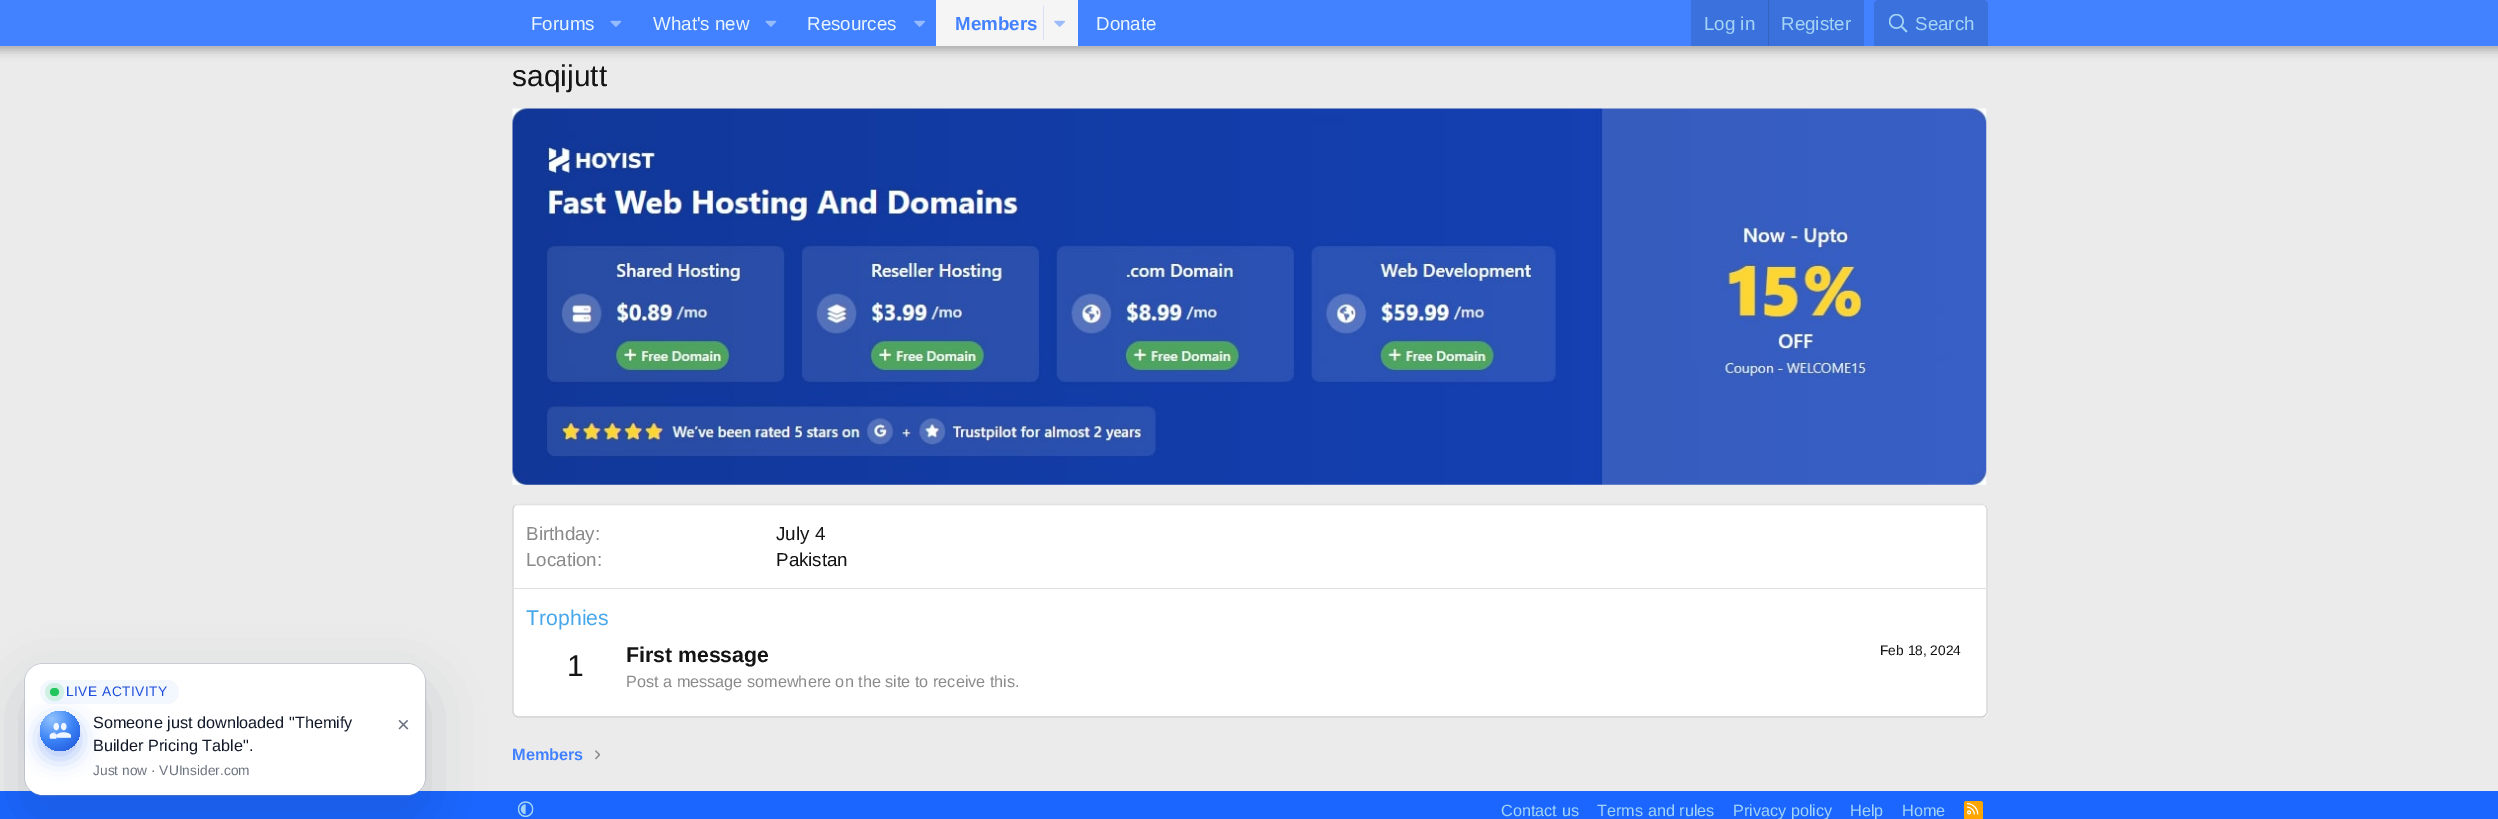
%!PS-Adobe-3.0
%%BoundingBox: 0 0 2498 819
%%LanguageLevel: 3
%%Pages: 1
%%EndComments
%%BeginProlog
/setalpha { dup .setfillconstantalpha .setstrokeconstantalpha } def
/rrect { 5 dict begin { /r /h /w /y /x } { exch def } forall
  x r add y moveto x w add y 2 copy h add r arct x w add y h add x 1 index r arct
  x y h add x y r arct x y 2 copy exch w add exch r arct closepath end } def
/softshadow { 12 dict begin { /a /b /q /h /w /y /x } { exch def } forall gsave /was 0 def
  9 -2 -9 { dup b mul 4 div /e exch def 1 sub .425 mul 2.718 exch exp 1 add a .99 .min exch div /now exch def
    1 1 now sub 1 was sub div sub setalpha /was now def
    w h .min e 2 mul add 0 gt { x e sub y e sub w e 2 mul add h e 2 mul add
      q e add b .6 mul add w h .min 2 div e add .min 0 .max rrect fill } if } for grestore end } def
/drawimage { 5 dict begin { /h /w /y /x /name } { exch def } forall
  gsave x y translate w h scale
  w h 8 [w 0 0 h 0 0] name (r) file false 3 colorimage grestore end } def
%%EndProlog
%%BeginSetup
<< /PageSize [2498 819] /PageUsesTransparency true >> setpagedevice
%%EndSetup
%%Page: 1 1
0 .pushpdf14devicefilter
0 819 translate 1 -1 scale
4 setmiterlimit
0.922 setgray
0 0 2498 819 rectfill
0.102 0.4 1 setrgbcolor
0 791 2498 28 rectfill
0.35 setalpha
0.58 0.639 0.722 setrgbcolor
24.5 663.5 401 132 18.5 rrect stroke
1 setalpha
0.059 0.09 0.161 setrgbcolor
25 686 400 132 18 28 0.15 softshadow
1 setgray
25 664 400 131 18 rrect fill
0.953 0.973 0.996 setrgbcolor
40 680 139 24 12 rrect fill
0.82 0.941 0.894 setrgbcolor
5 setlinewidth
47.5 685.5 14 13 6.5 rrect stroke
0.133 0.773 0.369 setrgbcolor
50 688 9 8 4 rrect fill
0.141 0.388 0.922 setrgbcolor
40 719 40 40 20 10 0.35 softshadow
gsave newpath 60 731 20 0 360 arc closepath clip newpath 52 719 translate 43 43 scale
<< /ShadingType 3 /ColorSpace /DeviceRGB /Coords [0 0 0 0 0 1] /Extend [true true] /Function << /FunctionType 3 /Domain [0 1] /Functions [<< /FunctionType 2 /Domain [0 1] /C0 [0.569 0.765 0.992] /C1 [0.235 0.514 0.965] /N 1 >> << /FunctionType 2 /Domain [0 1] /C0 [0.235 0.514 0.965] /C1 [0.114 0.31 0.843] /N 1 >>] /Bounds [0.5] /Encode [0 1 0 1] >> >> shfill grestore
(images/1.raw) 49 722 22 17 drawimage
0 setgray
-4 -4 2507 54 0 5 0.3 softshadow
0.259 0.506 1 setrgbcolor
0 0 2498 46 rectfill
(images/2.raw) 610 20 12 7 drawimage
(images/2.raw) 765 20 12 7 drawimage
(images/3.raw) 914 20 11 7 drawimage
0.961 setgray
936 0 142 46 rectfill
0.839 0.882 0.969 setrgbcolor
1043 6 1 34 rectfill
(images/4.raw) 1054 20 11 7 drawimage
0.231 0.443 0.863 setrgbcolor
1691 0 173 46 rectfill
0.208 0.388 0.745 setrgbcolor
1768 0 1 46 rectfill
0.231 0.443 0.863 setrgbcolor
newpath 1879 0 moveto 1983 0 lineto 1986 0 1988 2 1988 5 curveto 1988 46 lineto 1874 46 lineto 1874 5 lineto 1874 2 1876 0 1879 0 curveto closepath fill
(images/5.raw) 1889 14 19 19 drawimage
(images/6.raw) 512 108 1475 377 drawimage
1 setgray
513 504 1475 214 5 rrect fill
0.878 setgray
1.2 setlinewidth
newpath 514.5 505.5 moveto 517.5 504.5 lineto 1982.5 504.5 lineto 1985.5 505.5 lineto stroke
0.839 setgray
newpath 1985.5 505.5 moveto 1987 508.5 lineto 1987 678.5 lineto 1987 712.5 lineto 1985.5 715.5 lineto stroke
0.8 setgray
newpath 1985.5 715.5 moveto 1982.5 717 lineto 517.5 717 lineto 514.5 715.5 lineto stroke
0.839 setgray
newpath 514.5 715.5 moveto 513 712.5 lineto 513 508.5 lineto 514.5 505.5 lineto stroke
0.878 setgray
514 588 1472 1 rectfill
(images/7.raw) 595 750 5 10 drawimage
(images/8.raw) 517 801 17 16 drawimage
1 0.647 0 setrgbcolor
1964 801 19 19 2.5 rrect fill
(images/9.raw) 1967 803 12 12 drawimage
/LiberationSans-Regular [13.75 0 0 -13.75 0 0] selectfont
0.114 0.306 0.847 setrgbcolor
66 696 moveto 0.5 0 (LIVE ACTIVITY) ashow
/LiberationSans-Regular [16.25 0 0 -16.25 0 0] selectfont
0.067 0.094 0.153 setrgbcolor
93 728 moveto (Someone just downloaded "Themify) show
93 751 moveto (Builder Pricing Table".) show
/LiberationSans-Regular [13.75 0 0 -13.75 0 0] selectfont
0.42 0.447 0.502 setrgbcolor
93 775 moveto (Just now · VUInsider.com) show
/LiberationSans-Regular [22 0 0 -22 0 0] selectfont
397 732 moveto (×) show
/LiberationSans-Regular [18.75 0 0 -18.75 0 0] selectfont
0.91 0.957 0.988 setrgbcolor
531 30 moveto (Forums) show
653 30 moveto (What's new) show
807 30 moveto (Resources) show
/LiberationSans-Bold [18.75 0 0 -18.75 0 0] selectfont
0.259 0.506 1 setrgbcolor
955 30 moveto (Members) show
/LiberationSans-Regular [18.75 0 0 -18.75 0 0] selectfont
0.91 0.957 0.988 setrgbcolor
1096 30 moveto (Donate) show
0.639 0.831 0.961 setrgbcolor
1704 30 moveto (Log in) show
1781 30 moveto (Register) show
1915 30 moveto (Search) show
/LiberationSans-Regular [30 0 0 -30 0 0] selectfont
0.078 setgray
512 86 moveto (saqijutt) show
/LiberationSans-Regular [18.75 0 0 -18.75 0 0] selectfont
0.541 setgray
526 540 moveto (Birthday:) show
0.078 setgray
776 540 moveto (July 4) show
0.541 setgray
526 566 moveto (Location:) show
0.078 setgray
776 566 moveto (Pakistan) show
/LiberationSans-Regular [21.25 0 0 -21.25 0 0] selectfont
0.278 0.655 0.922 setrgbcolor
526 625 moveto (Trophies) show
/LiberationSans-Regular [30 0 0 -30 0 0] selectfont
0.078 setgray
567 676 moveto (1) show
/LiberationSans-Bold [21.25 0 0 -21.25 0 0] selectfont
626 662 moveto (First message) show
/LiberationSans-Regular [13.75 0 0 -13.75 0 0] selectfont
1880 655 moveto (Feb 18, 2024) show
/LiberationSans-Regular [16.25 0 0 -16.25 0 0] selectfont
0.541 setgray
626 687 moveto (Post a message somewhere on the site to receive this.) show
/LiberationSans-Bold [16.25 0 0 -16.25 0 0] selectfont
0.259 0.506 1 setrgbcolor
512 760 moveto (Members) show
/LiberationSans-Regular [16.25 0 0 -16.25 0 0] selectfont
0.639 0.831 0.961 setrgbcolor
1501 816 moveto (Contact us) show
1597 816 moveto (Terms and rules) show
1733 816 moveto (Privacy policy) show
1850 816 moveto (Help) show
1902 816 moveto (Home) show
.poppdf14devicefilter showpage
%%EOF
